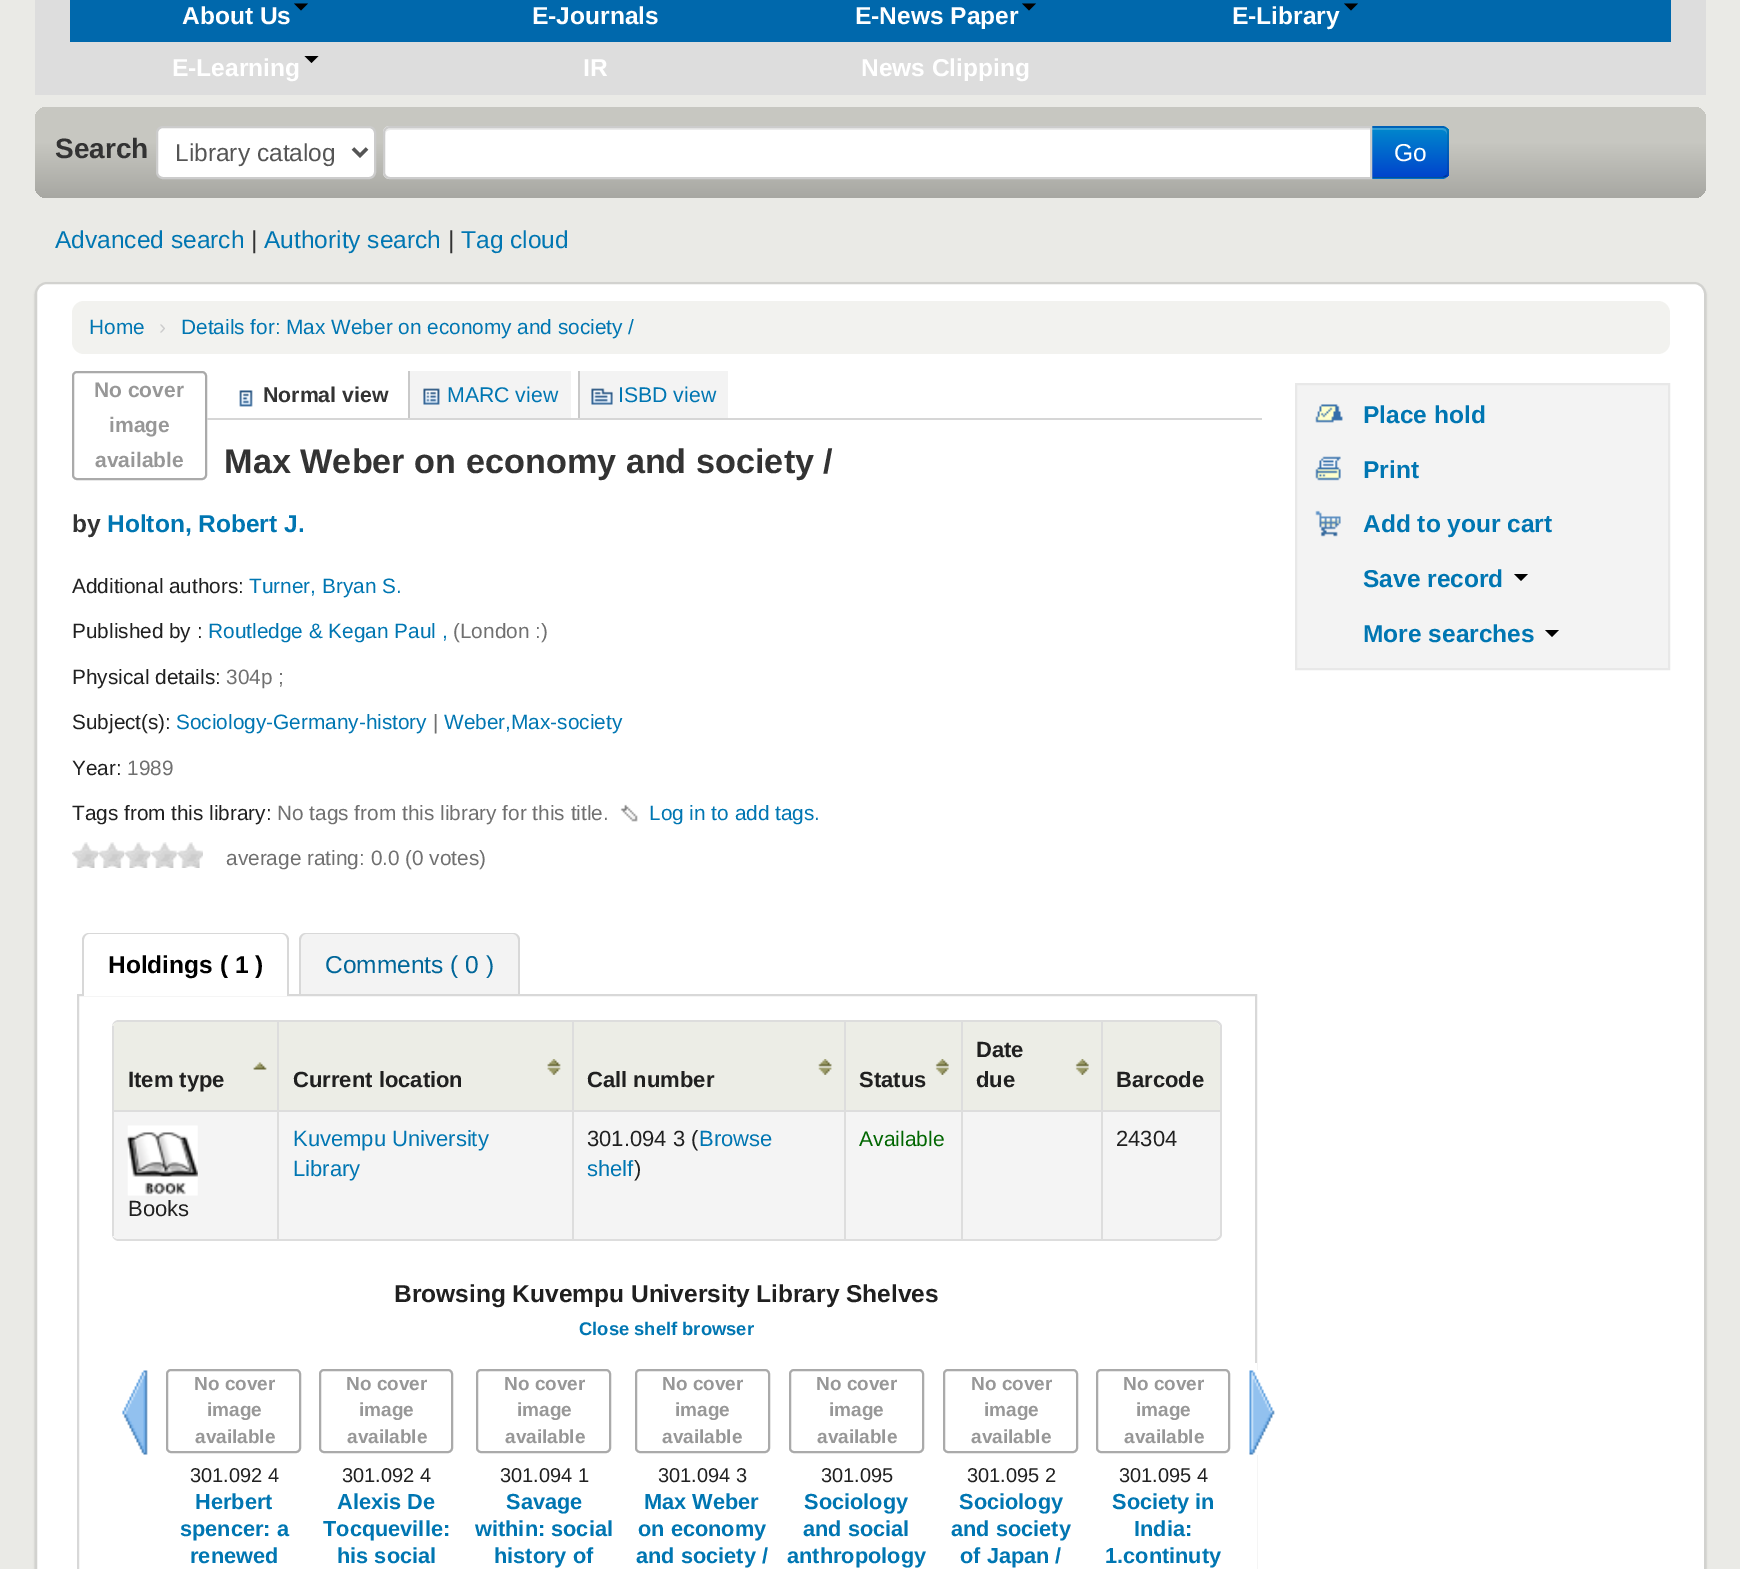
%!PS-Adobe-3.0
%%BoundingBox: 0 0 1740 1569
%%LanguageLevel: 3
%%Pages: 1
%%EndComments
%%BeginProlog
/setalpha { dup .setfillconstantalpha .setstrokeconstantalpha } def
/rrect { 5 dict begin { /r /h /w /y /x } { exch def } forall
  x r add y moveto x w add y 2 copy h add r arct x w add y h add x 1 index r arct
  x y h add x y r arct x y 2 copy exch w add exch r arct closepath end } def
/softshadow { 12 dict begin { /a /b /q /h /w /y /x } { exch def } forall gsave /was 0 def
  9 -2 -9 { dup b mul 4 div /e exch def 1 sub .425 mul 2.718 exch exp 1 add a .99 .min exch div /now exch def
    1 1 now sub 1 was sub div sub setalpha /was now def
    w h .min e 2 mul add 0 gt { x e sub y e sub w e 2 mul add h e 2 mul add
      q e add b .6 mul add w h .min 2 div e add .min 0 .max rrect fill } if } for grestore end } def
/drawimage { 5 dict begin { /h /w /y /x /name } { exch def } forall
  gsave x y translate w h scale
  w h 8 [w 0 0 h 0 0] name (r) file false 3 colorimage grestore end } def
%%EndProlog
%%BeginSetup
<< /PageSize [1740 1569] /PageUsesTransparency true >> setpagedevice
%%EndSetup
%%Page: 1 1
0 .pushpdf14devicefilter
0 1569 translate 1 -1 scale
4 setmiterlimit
0.918 0.918 0.902 setrgbcolor
0 0 1740 1569 rectfill
0.867 setgray
35 0 1671 95 rectfill
0 0.408 0.675 setrgbcolor
70 0 1601 42 rectfill
0 setgray
newpath 294 3.5 moveto 308 3.5 lineto 301 10.5 lineto closepath fill
newpath 1022 3.5 moveto 1036 3.5 lineto 1029 10.5 lineto closepath fill
newpath 1344 3.5 moveto 1358 3.5 lineto 1351 10.5 lineto closepath fill
newpath 304.5 56 moveto 318.5 56 lineto 311.5 63 lineto closepath fill
gsave 35 107 1671 91 12 rrect clip newpath
<< /ShadingType 2 /ColorSpace /DeviceRGB /Coords [871 107 871 198] /Extend [true true] /Function << /FunctionType 3 /Domain [0 1] /Functions [<< /FunctionType 2 /Domain [0 1] /C0 [0.78 0.78 0.757] /C1 [0.78 0.78 0.757] /N 1 >> << /FunctionType 2 /Domain [0 1] /C0 [0.78 0.78 0.757] /C1 [0.655 0.655 0.635] /N 1 >>] /Bounds [0.38] /Encode [0 1 0 1] >> >> shfill grestore
1 setgray
157 127 218 51 6 rrect gsave fill grestore
0.8 setgray
2 setlinewidth
stroke
0.333 setgray
3.5 setlinewidth
newpath 353 148.5 moveto 360 155.5 lineto 367 148.5 lineto stroke
0 0.427 0.8 setrgbcolor
newpath 1370 126 moveto 1442 126 lineto 1446 126 1449 129 1449 133 curveto 1449 172 lineto 1449 176 1446 179 1442 179 curveto 1370 179 lineto closepath fill
gsave
newpath 1370 126 moveto 1442 126 lineto 1446 126 1449 129 1449 133 curveto 1449 172 lineto 1449 176 1446 179 1442 179 curveto 1370 179 lineto closepath clip newpath
gsave newpath 1372 128 moveto 1449 128 lineto 1449 177 lineto 1372 177 lineto closepath clip newpath
<< /ShadingType 2 /ColorSpace /DeviceRGB /Coords [1410 128 1410 177] /Extend [true true] /Function << /FunctionType 2 /Domain [0 1] /C0 [0 0.533 0.8] /C1 [0 0.267 0.8] /N 1 >> >> shfill grestore
grestore
0.2 setalpha
1 setgray
newpath 1372 130 moveto 1442 130 lineto 1445 130 1447 132 1447 135 curveto 1447 133 lineto 1447 130 1445 128 1442 128 curveto 1372 128 lineto closepath fill
0.1 setalpha
0 setgray
newpath 1370 126 moveto 1372 128 lineto 1443 128 lineto 1446 129 lineto 1447 128 lineto 1446 127 1444 126 1442 126 curveto closepath fill
newpath 1449 172 moveto 1449 133 lineto 1449 131 1448 129 1447 128 curveto 1446 129 lineto 1446 130 1447 132 1447 133 curveto 1447 172 lineto 1447 173 1447 174 1446 175 curveto 1447 176 lineto 1448 175 1449 174 1449 172 curveto closepath fill
0.25 setalpha
newpath 1447 176 moveto 1446 177 1444 178 1442 178 curveto 1371 178 lineto 1372 177 lineto 1443 177 lineto 1446 175 lineto closepath fill
1 setalpha
1 setgray
newpath 390 126 moveto 1372 126 lineto 1372 179 lineto 390 179 lineto 386 179 383 176 383 172 curveto 383 133 lineto 383 129 386 126 390 126 curveto closepath fill
0.925 setgray
newpath 390 130 moveto 1370 130 lineto 1370 128 lineto 390 128 lineto 386 128 385 132 385 135 curveto 385 132 387 130 390 130 curveto closepath fill
0.8 setgray
2 setlinewidth
newpath 390 127 moveto 1371 127 lineto 1371 178 lineto 390 178 lineto 386.5 178 384 175.5 384 172 curveto 384 133 lineto 384 129.5 386.5 127 390 127 curveto closepath stroke
0 setgray
35 284 1671 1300 12 1 0.2 softshadow
1 setgray
36 283 1669 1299 11 rrect gsave fill grestore
0.824 0.824 0.812 setrgbcolor
stroke
0.949 0.949 0.937 setrgbcolor
72 301 1598 53 12 rrect fill
0.667 setgray
73 372 133 107 4 rrect stroke
0.839 setgray
207 418 1055 2 rectfill
(images/1.raw) 239 390 14 17 drawimage
0.953 setgray
410 371 161 47 rectfill
0.788 setgray
408 371 2 47 rectfill
(images/2.raw) 423 388 17 17 drawimage
0.953 setgray
580 371 148 47 rectfill
0.788 setgray
578 371 2 47 rectfill
(images/3.raw) 591 388 22 17 drawimage
(images/4.raw) 620 804 18 18 drawimage
(images/5.raw) 72 842 26 26 drawimage
(images/6.raw) 98 842 27 26 drawimage
(images/7.raw) 124 842 27 26 drawimage
(images/8.raw) 151 842 26 26 drawimage
(images/9.raw) 177 842 26 26 drawimage
0.847 setgray
78 995 1178 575 rectstroke
1 setgray
newpath 89 933 moveto 282 933 lineto 286 933 289 936 289 940 curveto 289 996 lineto 82 996 lineto 82 940 lineto 82 936 85 933 89 933 curveto closepath fill
0.847 setgray
newpath 89 933 moveto 282 933 lineto 286 933 289 936 289 940 curveto 289 996 lineto 82 996 lineto 82 940 lineto 82 936 85 933 89 933 curveto closepath 89 934 moveto 282 934 lineto 285 934 287 937 287 940 curveto 287 996 lineto 84 996 lineto 84 940 lineto 84 937 86 934 89 934 curveto closepath eofill
0.953 setgray
newpath 306 933 moveto 513 933 lineto 517 933 520 936 520 940 curveto 520 994 lineto 299 994 lineto 299 940 lineto 299 936 302 933 306 933 curveto closepath fill
0.847 setgray
newpath 306 933 moveto 513 933 lineto 517 933 520 936 520 940 curveto 520 994 lineto 299 994 lineto 299 940 lineto 299 936 302 933 306 933 curveto closepath 306 934 moveto 513 934 lineto 516 934 518 937 518 940 curveto 518 994 lineto 301 994 lineto 301 940 lineto 301 937 303 934 306 934 curveto closepath eofill
0.867 setgray
newpath 119 1020 moveto 1214 1020 lineto 1218 1020 1222 1023 1222 1027 curveto 1222 1234 lineto 1222 1238 1218 1241 1214 1241 curveto 119 1241 lineto 115 1241 112 1238 112 1234 curveto 112 1027 lineto 112 1023 115 1020 119 1020 curveto closepath 119 1022 moveto 1214 1022 lineto 1217 1022 1220 1024 1220 1027 curveto 1220 1234 lineto 1220 1237 1217 1239 1214 1239 curveto 119 1239 lineto 115 1239 112 1237 112 1234 curveto 112 1027 lineto 112 1024 115 1022 119 1022 curveto closepath eofill
0.925 0.929 0.902 setrgbcolor
newpath 119 1022 moveto 277 1022 lineto 277 1110 lineto 112 1110 lineto 112 1029 lineto 112 1025 115 1022 119 1022 curveto closepath fill
(images/10.raw) 253 1062 14 8 drawimage
0.867 setgray
112 1026 2 84 rectfill
0.925 0.929 0.902 setrgbcolor
279 1022 293 88 rectfill
(images/11.raw) 547 1059 14 16 drawimage
0.867 setgray
277 1022 2 88 rectfill
0.925 0.929 0.902 setrgbcolor
574 1022 270 88 rectfill
(images/12.raw) 818 1059 14 16 drawimage
0.867 setgray
572 1022 2 88 rectfill
0.925 0.929 0.902 setrgbcolor
846 1022 115 88 rectfill
(images/13.raw) 935 1059 14 16 drawimage
0.867 setgray
844 1022 2 88 rectfill
0.925 0.929 0.902 setrgbcolor
963 1022 138 88 rectfill
(images/13.raw) 1075 1059 14 16 drawimage
0.867 setgray
961 1022 2 88 rectfill
0.925 0.929 0.902 setrgbcolor
newpath 1101 1022 moveto 1213 1022 lineto 1217 1022 1220 1025 1220 1029 curveto 1220 1110 lineto 1101 1110 lineto closepath fill
0.867 setgray
1101 1022 2 88 rectfill
0.957 setgray
279 1112 293 127 rectfill
newpath 112 1110 moveto 277 1110 lineto 277 1239 lineto 119 1239 lineto 115 1239 112 1236 112 1232 curveto closepath fill
0.867 setgray
112 1110 989 2 rectfill
277 1110 2 129 rectfill
0.957 setgray
574 1112 270 127 rectfill
0.867 setgray
572 1110 2 129 rectfill
0.957 setgray
846 1112 115 127 rectfill
0.867 setgray
844 1110 2 129 rectfill
0.957 setgray
963 1112 138 127 rectfill
0.867 setgray
961 1110 2 129 rectfill
0.957 setgray
newpath 1101 1110 moveto 1220 1110 lineto 1220 1232 lineto 1220 1236 1217 1239 1213 1239 curveto 1101 1239 lineto closepath fill
0.867 setgray
1101 1110 119 2 rectfill
1101 1110 2 129 rectfill
112 1110 2 126 rectfill
(images/14.raw) 127 1125 71 71 drawimage
1 setgray
1255 1363 2 206 rectfill
(images/15.raw) 122 1370 26 85 drawimage
0.667 setgray
167 1370 133 82 4 rrect stroke
320 1370 132 82 4 rrect stroke
477 1370 133 82 4 rrect stroke
636 1370 133 82 4 rrect stroke
790 1370 133 82 4 rrect stroke
944 1370 133 82 4 rrect stroke
1097 1370 132 82 4 rrect stroke
(images/16.raw) 1249 1370 26 85 drawimage
0.953 setgray
newpath 1296 384 moveto 1669 384 lineto 1669 669 lineto 1296 669 lineto closepath gsave fill grestore
0.91 setgray
stroke
(images/17.raw) 1315 404 28 19 drawimage
(images/18.raw) 1315 456 26 25 drawimage
(images/19.raw) 1315 510 26 27 drawimage
0 setgray
newpath 1514 574 moveto 1528 574 lineto 1521 581 lineto closepath fill
newpath 1545 630 moveto 1559 630 lineto 1552 637 lineto closepath fill
/LiberationSans-Bold [24.5 0 0 -24.5 0 0] selectfont
1 setgray
182 24 moveto (About Us) show
532 24 moveto (E-Journals) show
855 24 moveto (E-News Paper) show
1232 24 moveto (E-Library) show
172 76 moveto (E-Learning) show
583 76 moveto (IR) show
861 76 moveto (News Clipping) show
/LiberationSans-Bold [28 0 0 -28 0 0] selectfont
0.2 setgray
55 158 moveto (Search) show
/LiberationSans-Regular [24.5 0 0 -24.5 0 0] selectfont
0.333 setgray
175 161 moveto (Library catalog) show
1 setgray
1394 161 moveto (Go) show
0 0.463 0.698 setrgbcolor
55 248 moveto (Advanced search) show
0.2 setgray
251 248 moveto (|) show
0 0.463 0.698 setrgbcolor
264 248 moveto (Authority search) show
0.2 setgray
448 248 moveto (|) show
0 0.463 0.698 setrgbcolor
461 248 moveto (Tag cloud) show
/LiberationSans-Regular [20.8 0 0 -20.8 0 0] selectfont
89 334 moveto (Home) show
0.8 setgray
159 334 moveto (›) show
0 0.463 0.698 setrgbcolor
181 334 moveto (Details for: Max Weber on economy and society /) show
/LiberationSans-Bold [21 0 0 -21 0 0] selectfont
0.592 setgray
94 397 moveto (No cover) show
109 432 moveto (image) show
95 467 moveto (available) show
/LiberationSans-Bold [21.25 0 0 -21.25 0 0] selectfont
0.2 setgray
263 402 moveto (Normal view) show
/LiberationSans-Regular [21.25 0 0 -21.25 0 0] selectfont
0 0.463 0.698 setrgbcolor
447 402 moveto (MARC view) show
618 402 moveto (ISBD view) show
/LiberationSans-Bold [34.25 0 0 -34.25 0 0] selectfont
0.2 setgray
224 473 moveto (Max Weber on economy and society /) show
/LiberationSans-Bold [24.5 0 0 -24.5 0 0] selectfont
72 532 moveto (by) show
0 0.463 0.698 setrgbcolor
107 532 moveto (Holton, Robert J.) show
/LiberationSans-Regular [20.75 0 0 -20.75 0 0] selectfont
0.125 setgray
72 593 moveto (Additional authors:) show
/LiberationSans-Regular [20.8 0 0 -20.8 0 0] selectfont
0 0.463 0.698 setrgbcolor
249 593 moveto (Turner, Bryan S.) show
/LiberationSans-Regular [20.75 0 0 -20.75 0 0] selectfont
0.125 setgray
72 638 moveto (Published by :) show
/LiberationSans-Regular [20.8 0 0 -20.8 0 0] selectfont
0 0.463 0.698 setrgbcolor
208 638 moveto (Routledge & Kegan Paul ,) show
0.439 setgray
453 638 moveto (\(London :\)) show
/LiberationSans-Regular [20.75 0 0 -20.75 0 0] selectfont
0.125 setgray
72 684 moveto (Physical details:) show
/LiberationSans-Regular [20.8 0 0 -20.8 0 0] selectfont
0.439 setgray
226 684 moveto (304p ;) show
/LiberationSans-Regular [20.75 0 0 -20.75 0 0] selectfont
0.125 setgray
72 729 moveto (Subject\(s\):) show
/LiberationSans-Regular [20.8 0 0 -20.8 0 0] selectfont
0 0.463 0.698 setrgbcolor
176 729 moveto (Sociology-Germany-history) show
0.439 setgray
433 729 moveto (|) show
0 0.463 0.698 setrgbcolor
444 729 moveto (Weber,Max-society) show
/LiberationSans-Regular [20.75 0 0 -20.75 0 0] selectfont
0.125 setgray
72 775 moveto (Year:) show
/LiberationSans-Regular [20.8 0 0 -20.8 0 0] selectfont
0.439 setgray
127 775 moveto (1989) show
/LiberationSans-Regular [20.75 0 0 -20.75 0 0] selectfont
0.125 setgray
72 820 moveto (Tags from this library:) show
/LiberationSans-Regular [20.8 0 0 -20.8 0 0] selectfont
0.439 setgray
277 820 moveto (No tags from this library for this title.) show
0 0.463 0.698 setrgbcolor
649 820 moveto (Log in to add tags.) show
0.439 setgray
226 865 moveto (average rating: 0.0 \(0 votes\)) show
/LiberationSans-Bold [24.5 0 0 -24.5 0 0] selectfont
0 setgray
108 973 moveto (Holdings \( 1 \)) show
/LiberationSans-Regular [24.5 0 0 -24.5 0 0] selectfont
0 0.4 0.6 setrgbcolor
325 973 moveto (Comments \( 0 \)) show
/LiberationSans-Bold [22 0 0 -22 0 0] selectfont
0.125 setgray
128 1087 moveto (Item type) show
293 1087 moveto (Current location) show
587 1087 moveto (Call number) show
859 1087 moveto (Status) show
976 1057 moveto (Date) show
976 1087 moveto (due) show
1116 1087 moveto (Barcode) show
/LiberationSans-Regular [22 0 0 -22 0 0] selectfont
0 0.463 0.698 setrgbcolor
293 1146 moveto (Kuvempu University) show
293 1176 moveto (Library) show
0.125 setgray
587 1146 moveto (301.094 3 \() show
0 0.463 0.698 setrgbcolor
699 1146 moveto (Browse) show
587 1176 moveto (shelf) show
0.125 setgray
634 1176 moveto (\)) show
/LiberationSans-Regular [21 0 0 -21 0 0] selectfont
0 0.4 0 setrgbcolor
859 1146 moveto (Available) show
/LiberationSans-Regular [22 0 0 -22 0 0] selectfont
0.125 setgray
1116 1146 moveto (24304) show
128 1216 moveto (Books) show
/LiberationSans-Bold [24.5 0 0 -24.5 0 0] selectfont
394 1302 moveto (Browsing Kuvempu University Library Shelves) show
/LiberationSans-Bold [18.4 0 0 -18.4 0 0] selectfont
0 0.463 0.698 setrgbcolor
579 1335 moveto (Close shelf browser) show
/LiberationSans-Bold [19 0 0 -19 0 0] selectfont
0.592 setgray
194 1390 moveto (No cover) show
207 1416 moveto (image) show
195 1443 moveto (available) show
346 1390 moveto (No cover) show
359 1416 moveto (image) show
347 1443 moveto (available) show
504 1390 moveto (No cover) show
517 1416 moveto (image) show
505 1443 moveto (available) show
662 1390 moveto (No cover) show
675 1416 moveto (image) show
662 1443 moveto (available) show
816 1390 moveto (No cover) show
829 1416 moveto (image) show
817 1443 moveto (available) show
971 1390 moveto (No cover) show
984 1416 moveto (image) show
971 1443 moveto (available) show
1123 1390 moveto (No cover) show
1136 1416 moveto (image) show
1124 1443 moveto (available) show
/LiberationSans-Regular [20 0 0 -20 0 0] selectfont
0.125 setgray
190 1482 moveto (301.092 4) show
/LiberationSans-Bold [21.75 0 0 -21.75 0 0] selectfont
0 0.463 0.698 setrgbcolor
195 1509 moveto (Herbert) show
180 1536 moveto (spencer: a) show
190 1563 moveto (renewed) show
/LiberationSans-Regular [20 0 0 -20 0 0] selectfont
0.125 setgray
342 1482 moveto (301.092 4) show
/LiberationSans-Bold [21.75 0 0 -21.75 0 0] selectfont
0 0.463 0.698 setrgbcolor
337 1509 moveto (Alexis De) show
323 1536 moveto (Tocqueville:) show
337 1563 moveto (his social) show
/LiberationSans-Regular [20 0 0 -20 0 0] selectfont
0.125 setgray
500 1482 moveto (301.094 1) show
/LiberationSans-Bold [21.75 0 0 -21.75 0 0] selectfont
0 0.463 0.698 setrgbcolor
506 1509 moveto (Savage) show
475 1536 moveto (within: social) show
494 1563 moveto (history of) show
/LiberationSans-Regular [20 0 0 -20 0 0] selectfont
0.125 setgray
658 1482 moveto (301.094 3) show
/LiberationSans-Bold [21.75 0 0 -21.75 0 0] selectfont
0 0.463 0.698 setrgbcolor
644 1509 moveto (Max Weber) show
638 1536 moveto (on economy) show
636 1563 moveto (and society /) show
/LiberationSans-Regular [20 0 0 -20 0 0] selectfont
0.125 setgray
821 1482 moveto (301.095) show
/LiberationSans-Bold [21.75 0 0 -21.75 0 0] selectfont
0 0.463 0.698 setrgbcolor
804 1509 moveto (Sociology) show
803 1536 moveto (and social) show
787 1563 moveto (anthropology) show
/LiberationSans-Regular [20 0 0 -20 0 0] selectfont
0.125 setgray
967 1482 moveto (301.095 2) show
/LiberationSans-Bold [21.75 0 0 -21.75 0 0] selectfont
0 0.463 0.698 setrgbcolor
959 1509 moveto (Sociology) show
951 1536 moveto (and society) show
960 1563 moveto (of Japan /) show
/LiberationSans-Regular [20 0 0 -20 0 0] selectfont
0.125 setgray
1119 1482 moveto (301.095 4) show
/LiberationSans-Bold [21.75 0 0 -21.75 0 0] selectfont
0 0.463 0.698 setrgbcolor
1112 1509 moveto (Society in) show
1134 1536 moveto (India:) show
1105 1563 moveto (1.continuty) show
/LiberationSans-Bold [24.5 0 0 -24.5 0 0] selectfont
1363 423 moveto (Place hold) show
1363 478 moveto (Print) show
1363 532 moveto (Add to your cart) show
1363 587 moveto (Save record) show
1363 642 moveto (More searches) show
.poppdf14devicefilter showpage
%%EOF
